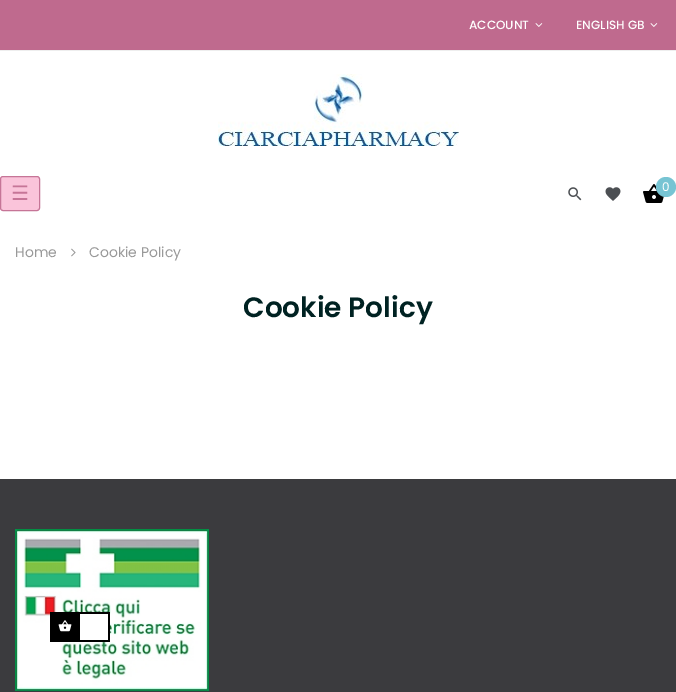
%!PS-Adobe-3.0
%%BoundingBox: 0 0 676 692
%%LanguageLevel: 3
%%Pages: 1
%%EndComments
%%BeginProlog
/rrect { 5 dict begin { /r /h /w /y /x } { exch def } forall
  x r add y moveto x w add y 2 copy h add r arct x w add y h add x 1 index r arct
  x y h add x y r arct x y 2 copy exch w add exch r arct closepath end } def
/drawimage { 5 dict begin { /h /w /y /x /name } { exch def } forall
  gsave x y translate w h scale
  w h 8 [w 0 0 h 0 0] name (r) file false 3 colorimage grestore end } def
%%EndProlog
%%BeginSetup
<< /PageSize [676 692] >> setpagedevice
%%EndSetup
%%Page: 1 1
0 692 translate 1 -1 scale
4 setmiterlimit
1 setgray
0 0 676 692 rectfill
0.749 0.416 0.557 setrgbcolor
0 0 676 50 rectfill
(images/1.raw) 535 23 8 4 drawimage
(images/1.raw) 650 23 8 4 drawimage
0.933 setgray
0 50 676 1 rectfill
(images/2.raw) 218 74 241 72 drawimage
0.98 0.769 0.855 setrgbcolor
0.5 176.5 39 34 2.5 rrect gsave fill grestore
0.776 0.459 0.592 setrgbcolor
stroke
(images/3.raw) 568 187 14 14 drawimage
(images/4.raw) 605 187 16 14 drawimage
(images/5.raw) 643 184 21 19 drawimage
0.467 0.769 0.827 setrgbcolor
newpath 666 187 10 0 360 arc closepath fill
(images/6.raw) 71 248 5 9 drawimage
0.231 0.231 0.243 setrgbcolor
0 479 676 213 rectfill
(images/7.raw) 15 529 194 162 drawimage
0 setgray
50 612 60 30 rectfill
(images/8.raw) 58 620 14 12 drawimage
1 setgray
80 614 28 26 rectfill
/Poppins-Medium [12 0 0 -12 0 0] selectfont
469 29 moveto (ACCOUNT) show
576 29 moveto (ENGLISH GB) show
/DejaVuSans-Regular [20 0 0 -20 0 0] selectfont
0.776 0.459 0.592 setrgbcolor
11 200 moveto (☰) show
/Poppins-Regular [12 0 0 -12 0 0] selectfont
1 setgray
662 191 moveto (0) show
/Poppins-Regular [14 0 0 -14 0 0] selectfont
0.6 setgray
15 257 moveto (Home) show
89 257 moveto (Cookie Policy) show
/Poppins-SemiBold [28 0 0 -28 0 0] selectfont
0 0.133 0.133 setrgbcolor
243 317 moveto (Cookie Policy) show
showpage
%%EOF
